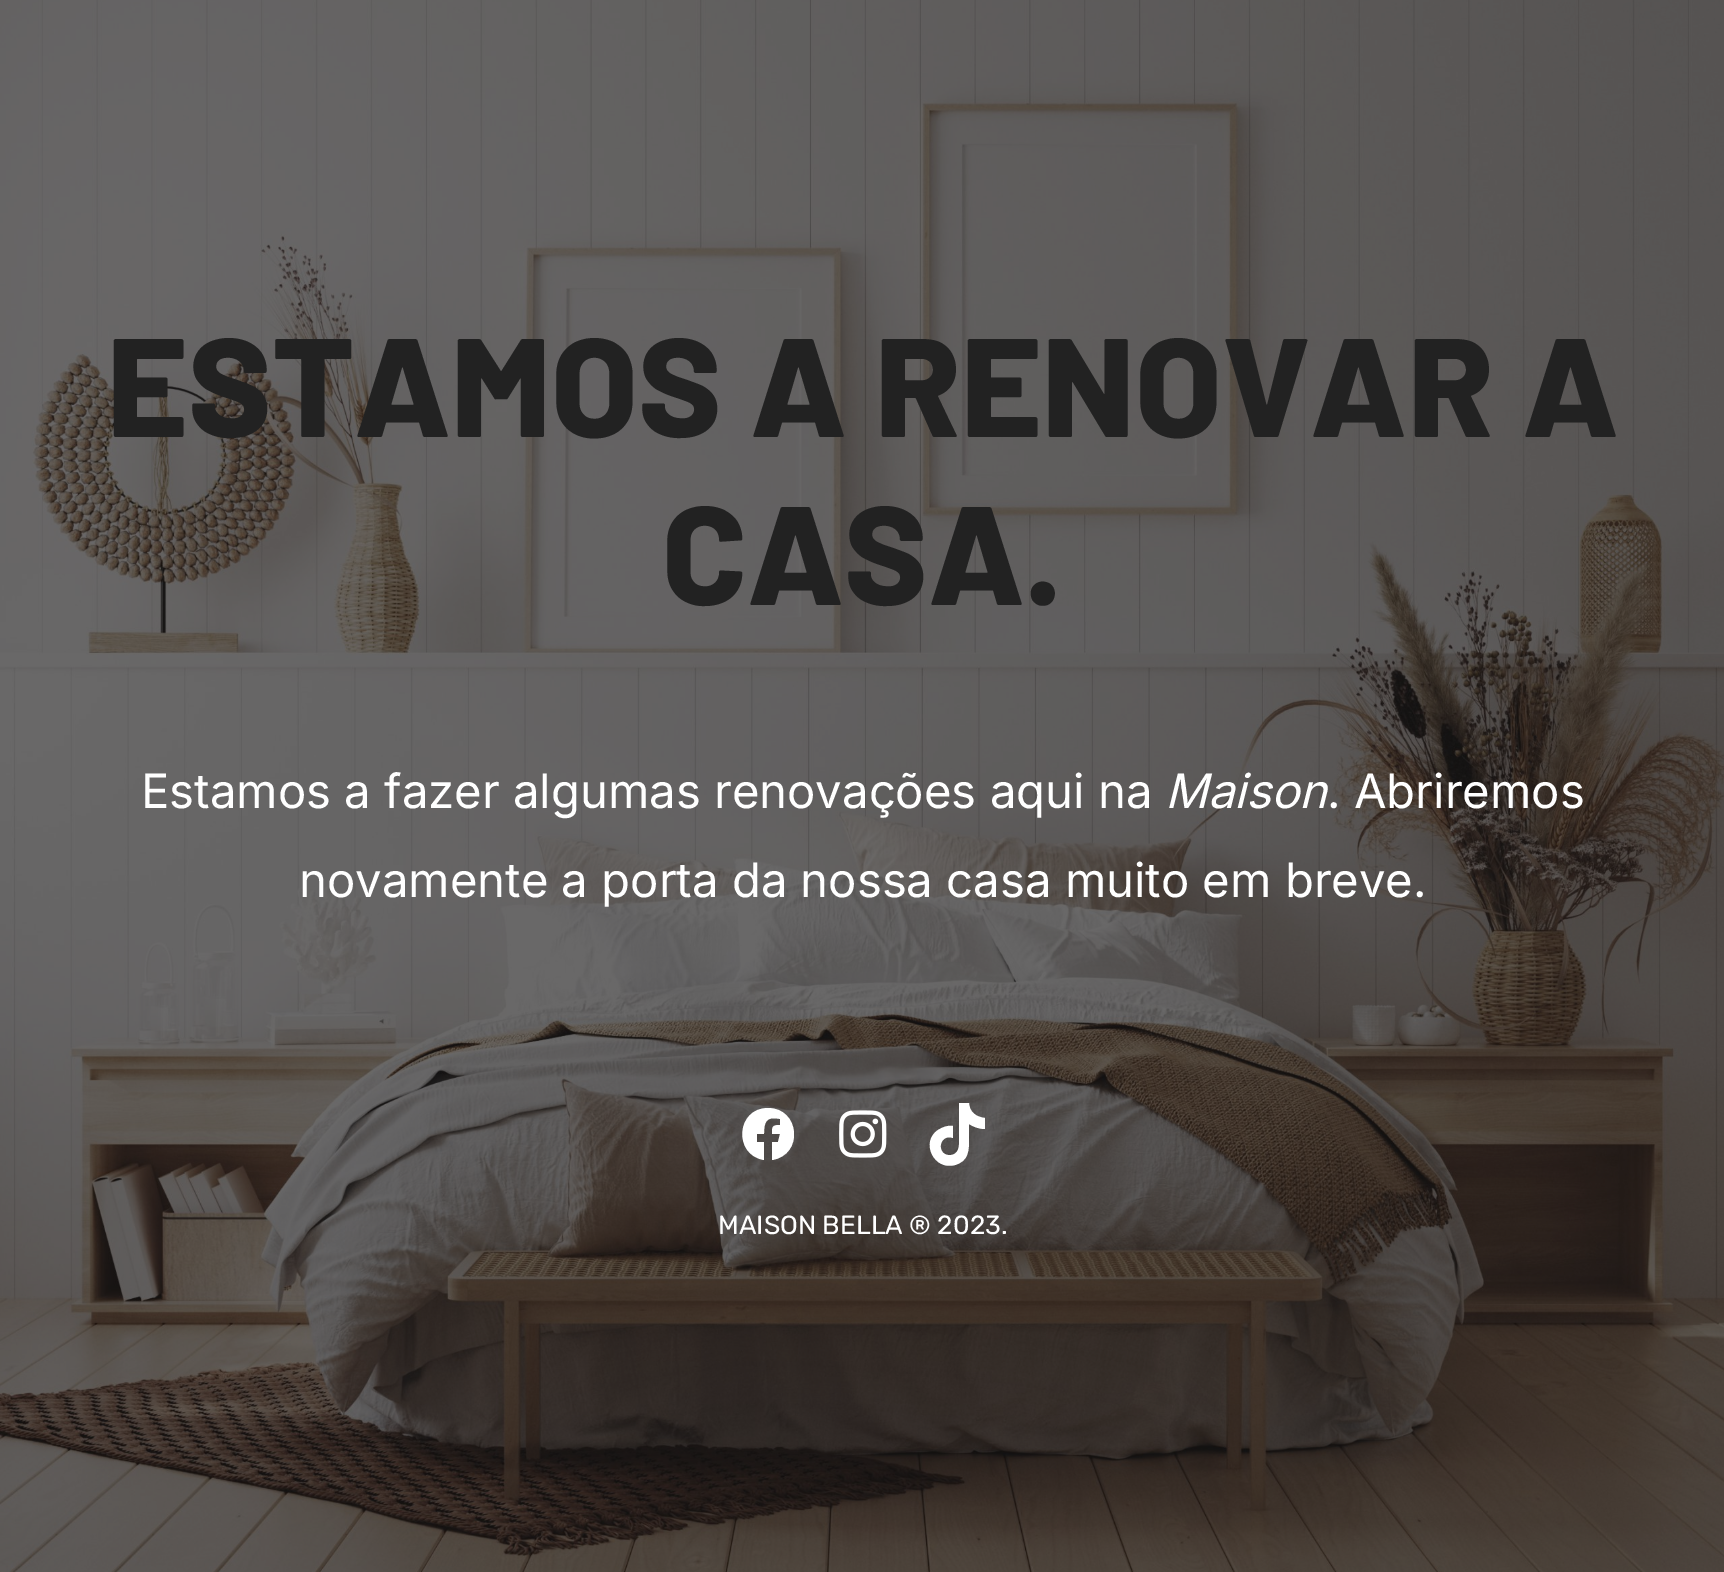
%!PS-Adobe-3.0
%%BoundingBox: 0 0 1724 1572
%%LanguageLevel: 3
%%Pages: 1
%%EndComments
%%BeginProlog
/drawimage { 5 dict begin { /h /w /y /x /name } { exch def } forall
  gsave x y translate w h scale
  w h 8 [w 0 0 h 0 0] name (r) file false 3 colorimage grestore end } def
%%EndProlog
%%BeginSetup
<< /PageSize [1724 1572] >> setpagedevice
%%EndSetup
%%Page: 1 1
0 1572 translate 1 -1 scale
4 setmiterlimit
0.098 0.09 0.09 setrgbcolor
0 0 1724 1572 rectfill
(images/1.raw) 0 0 1724 1572 drawimage
1 setgray
newpath 768 1108 moveto 736 1108 733 1155 764 1160 curveto 764 1142 lineto 757 1142 lineto 757 1134 lineto 764 1134 lineto 764 1122 766 1116 780 1119 curveto 780 1125 lineto 772 1125 772 1127 772 1134 curveto 780 1134 lineto 778 1142 lineto 772 1142 lineto 772 1160 lineto 804 1155 800 1108 768 1108 curveto closepath fill
(images/2.raw) 839 1110 48 48 drawimage
gsave
926 1103 63 63 rectclip
newpath 959 1103 moveto 969 1102 lineto 969 1112 976 1117 985 1118 curveto 985 1129 lineto 979 1129 974 1127 969 1124 curveto 969 1138 lineto 969 1150 969 1161 955 1165 curveto 934 1171 920 1142 938 1130 curveto 943 1127 948 1125 953 1126 curveto 953 1138 lineto 938 1133 936 1157 951 1155 curveto 961 1154 959 1141 959 1134 curveto closepath fill
grestore
/Barlow-ExtraBold [140 0 0 -140 0 0] selectfont
0.133 setgray
107 437 moveto (ESTAMOS A RENOVAR A) show
662 605 moveto (CASA.) show
/Inter-Regular [47.25 0 0 -47.25 0 0] selectfont
1 setgray
141 808 moveto (Estamos a fazer algumas renovações aqui na) show
/Inter-Italic [47.25 0 0 -47.25 0 0] selectfont
1165 808 moveto (Maison) show
/Inter-Regular [47.25 0 0 -47.25 0 0] selectfont
1327 808 moveto (. Abriremos) show
299 897 moveto (novamente a porta da nossa casa muito em breve.) show
/Rubik-Regular [26.25 0 0 -26.25 0 0] selectfont
718 1234 moveto (MAISON BELLA ® 2023.) show
showpage
%%EOF
